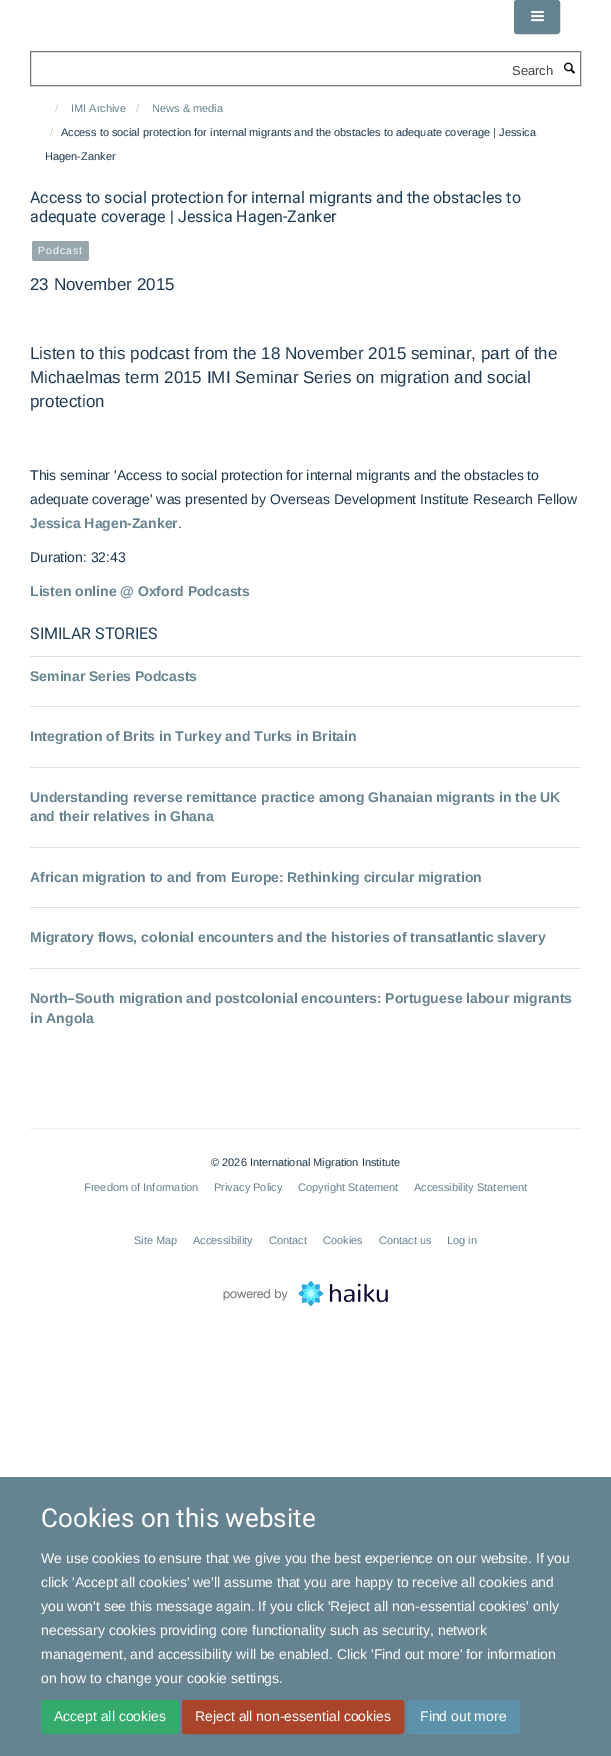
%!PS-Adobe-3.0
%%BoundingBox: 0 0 611 1756
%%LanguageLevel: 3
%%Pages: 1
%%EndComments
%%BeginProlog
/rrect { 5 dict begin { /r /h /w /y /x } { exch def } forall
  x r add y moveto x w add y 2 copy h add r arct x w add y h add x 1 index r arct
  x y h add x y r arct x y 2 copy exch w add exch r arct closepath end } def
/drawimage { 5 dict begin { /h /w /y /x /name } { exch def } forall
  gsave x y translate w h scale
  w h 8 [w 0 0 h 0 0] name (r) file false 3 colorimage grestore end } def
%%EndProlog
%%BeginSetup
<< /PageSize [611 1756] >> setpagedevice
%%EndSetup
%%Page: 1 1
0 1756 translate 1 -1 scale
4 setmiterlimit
1 setgray
0 0 611 1756 rectfill
0.4 0.514 0.569 setrgbcolor
514.5 0.5 45 33 2.5 rrect gsave fill grestore
stroke
(images/1.raw) 531 11 13 11 drawimage
0.467 setgray
30.5 51.5 550 34 rectstroke
(images/2.raw) 564 62 11 12 drawimage
0.596 0.655 0.682 setrgbcolor
32 241 57 20 2.5 rrect fill
0.867 setgray
30 656 551 1 rectfill
0.875 0.882 0.894 setrgbcolor
30 706 551 1 rectfill
30 767 551 1 rectfill
30 847 551 1 rectfill
30 907 551 1 rectfill
30 968 551 1 rectfill
0.933 setgray
30 1128 551 1 rectfill
(images/3.raw) 223 1280 165 27 drawimage
0.4 0.514 0.569 setrgbcolor
0 1477 611 279 rectfill
0.204 0.667 0.427 setrgbcolor
41.5 1700.5 137 33 2.5 rrect gsave fill grestore
stroke
0.667 0.267 0.169 setrgbcolor
182.5 1700.5 221 33 2.5 rrect gsave fill grestore
stroke
0.365 0.576 0.667 setrgbcolor
407.5 1700.5 112 33 2.5 rrect gsave fill grestore
stroke
/LiberationSans-Regular [13 0 0 -13 0 0] selectfont
0.267 setgray
512 75 moveto (Search) show
/LiberationSans-Regular [11 0 0 -11 0 0] selectfont
0.8 setgray
55 112 moveto (/) show
0.4 0.514 0.569 setrgbcolor
71 112 moveto (IMI Archive) show
0.8 setgray
136 112 moveto (/) show
0.4 0.514 0.569 setrgbcolor
152 112 moveto (News & media) show
0.8 setgray
50 136 moveto (/) show
0.114 0.22 0.314 setrgbcolor
61 136 moveto (Access to social protection for internal migrants and the obstacles to adequate coverage | Jessica) show
45 160 moveto (Hagen-Zanker) show
/Roboto-Regular [16 0 0 -16 0 0] selectfont
0.125 0.243 0.345 setrgbcolor
30 203 moveto (Access to social protection for internal migrants and the obstacles to) show
30 222 moveto (adequate coverage | Jessica Hagen-Zanker) show
/LiberationSans-Regular [10.5 0 0 -10.5 0 0] selectfont
1 setgray
38 254 moveto 1 0 (Podcast) ashow
/LiberationSans-Regular [17 0 0 -17 0 0] selectfont
0.114 0.22 0.314 setrgbcolor
30 290 moveto (23 November 2015) show
30 359 moveto (Listen to this podcast from the 18 November 2015 seminar, part of the) show
30 383 moveto (Michaelmas term 2015 IMI Seminar Series on migration and social) show
30 407 moveto (protection) show
/LiberationSans-Regular [14 0 0 -14 0 0] selectfont
30 480 moveto (This seminar 'Access to social protection for internal migrants and the obstacles to) show
30 504 moveto (adequate coverage' was presented by Overseas Development Institute Research Fellow) show
/LiberationSans-Bold [14 0 0 -14 0 0] selectfont
0.4 0.514 0.569 setrgbcolor
30 528 moveto (Jessica Hagen-Zanker) show
/LiberationSans-Regular [14 0 0 -14 0 0] selectfont
0.114 0.22 0.314 setrgbcolor
178 528 moveto (.) show
30 562 moveto (Duration: 32:43) show
/LiberationSans-Bold [14 0 0 -14 0 0] selectfont
0.4 0.514 0.569 setrgbcolor
30 596 moveto (Listen online @ Oxford Podcasts) show
/Roboto-Regular [16 0 0 -16 0 0] selectfont
0.125 0.243 0.345 setrgbcolor
30 639 moveto (SIMILAR STORIES) show
/LiberationSans-Bold [14 0 0 -14 0 0] selectfont
0.4 0.514 0.569 setrgbcolor
30 681 moveto (Seminar Series Podcasts) show
30 741 moveto (Integration of Brits in Turkey and Turks in Britain) show
30 802 moveto (Understanding reverse remittance practice among Ghanaian migrants in the UK) show
30 821 moveto (and their relatives in Ghana) show
30 882 moveto (African migration to and from Europe: Rethinking circular migration) show
30 942 moveto (Migratory flows, colonial encounters and the histories of transatlantic slavery) show
30 1003 moveto (North–South migration and postcolonial encounters: Portuguese labour migrants) show
30 1023 moveto (in Angola) show
/LiberationSans-Regular [11 0 0 -11 0 0] selectfont
0.114 0.22 0.314 setrgbcolor
211 1166 moveto (© 2026 International Migration Institute) show
0.4 0.514 0.569 setrgbcolor
84 1191 moveto (Freedom of Information) show
214 1191 moveto (Privacy Policy) show
298 1191 moveto (Copyright Statement) show
414 1191 moveto (Accessibility Statement) show
134 1244 moveto (Site Map) show
193 1244 moveto (Accessibility) show
269 1244 moveto (Contact) show
323 1244 moveto (Cookies) show
379 1244 moveto (Contact us) show
447 1244 moveto (Log in) show
/Roboto-Regular [26 0 0 -26 0 0] selectfont
1 setgray
41 1527 moveto (Cookies on this website) show
/LiberationSans-Regular [14 0 0 -14 0 0] selectfont
41 1563 moveto (We use cookies to ensure that we give you the best experience on our website. If you) show
41 1587 moveto (click 'Accept all cookies' we'll assume that you are happy to receive all cookies and) show
41 1611 moveto (you won't see this message again. If you click 'Reject all non-essential cookies' only) show
41 1635 moveto (necessary cookies providing core functionality such as security, network) show
41 1659 moveto (management, and accessibility will be enabled. Click 'Find out more' for information) show
41 1683 moveto (on how to change your cookie settings.) show
54 1721 moveto (Accept all cookies) show
195 1721 moveto (Reject all non-essential cookies) show
420 1721 moveto (Find out more) show
showpage
%%EOF
